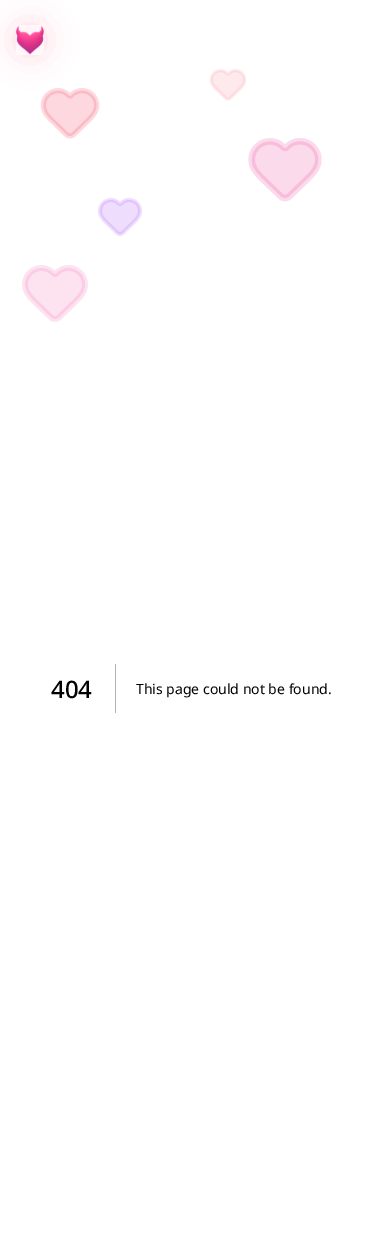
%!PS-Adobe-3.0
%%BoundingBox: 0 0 382 1249
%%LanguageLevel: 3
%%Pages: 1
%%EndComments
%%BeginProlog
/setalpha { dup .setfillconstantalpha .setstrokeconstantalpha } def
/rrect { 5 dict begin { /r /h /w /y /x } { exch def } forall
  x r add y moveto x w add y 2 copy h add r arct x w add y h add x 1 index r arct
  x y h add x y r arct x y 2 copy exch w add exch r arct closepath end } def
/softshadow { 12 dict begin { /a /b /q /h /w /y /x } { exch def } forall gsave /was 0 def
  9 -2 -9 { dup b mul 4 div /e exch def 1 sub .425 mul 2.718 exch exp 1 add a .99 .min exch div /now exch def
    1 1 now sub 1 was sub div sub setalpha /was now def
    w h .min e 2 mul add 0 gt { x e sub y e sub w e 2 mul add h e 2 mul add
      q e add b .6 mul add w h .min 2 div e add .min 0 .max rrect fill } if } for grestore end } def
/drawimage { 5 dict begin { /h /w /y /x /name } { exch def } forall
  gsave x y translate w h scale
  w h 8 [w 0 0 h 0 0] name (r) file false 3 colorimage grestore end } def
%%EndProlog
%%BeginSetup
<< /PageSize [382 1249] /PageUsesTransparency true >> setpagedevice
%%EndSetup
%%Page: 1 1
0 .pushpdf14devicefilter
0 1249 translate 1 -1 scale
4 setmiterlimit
1 setgray
0 0 382 1249 rectfill
(images/2.raw) 40 88 60 51 drawimage
0.957 0.247 0.369 setrgbcolor
16 26 28 28 14 16 0.2 softshadow
(images/1.raw) 16 25 28 30 drawimage
(images/3.raw) 209 69 38 32 drawimage
(images/4.raw) 248 138 74 64 drawimage
(images/5.raw) 98 198 44 38 drawimage
(images/6.raw) 22 265 66 57 drawimage
0.702 setgray
115 664 1 49 rectfill
/NotoSans-Medium [24 0 0 -24 0 0] selectfont
0 setgray
51 698 moveto (404) show
/NotoSans-Regular [14 0 0 -14 0 0] selectfont
136 694 moveto (This page could not be found.) show
.poppdf14devicefilter showpage
%%EOF
